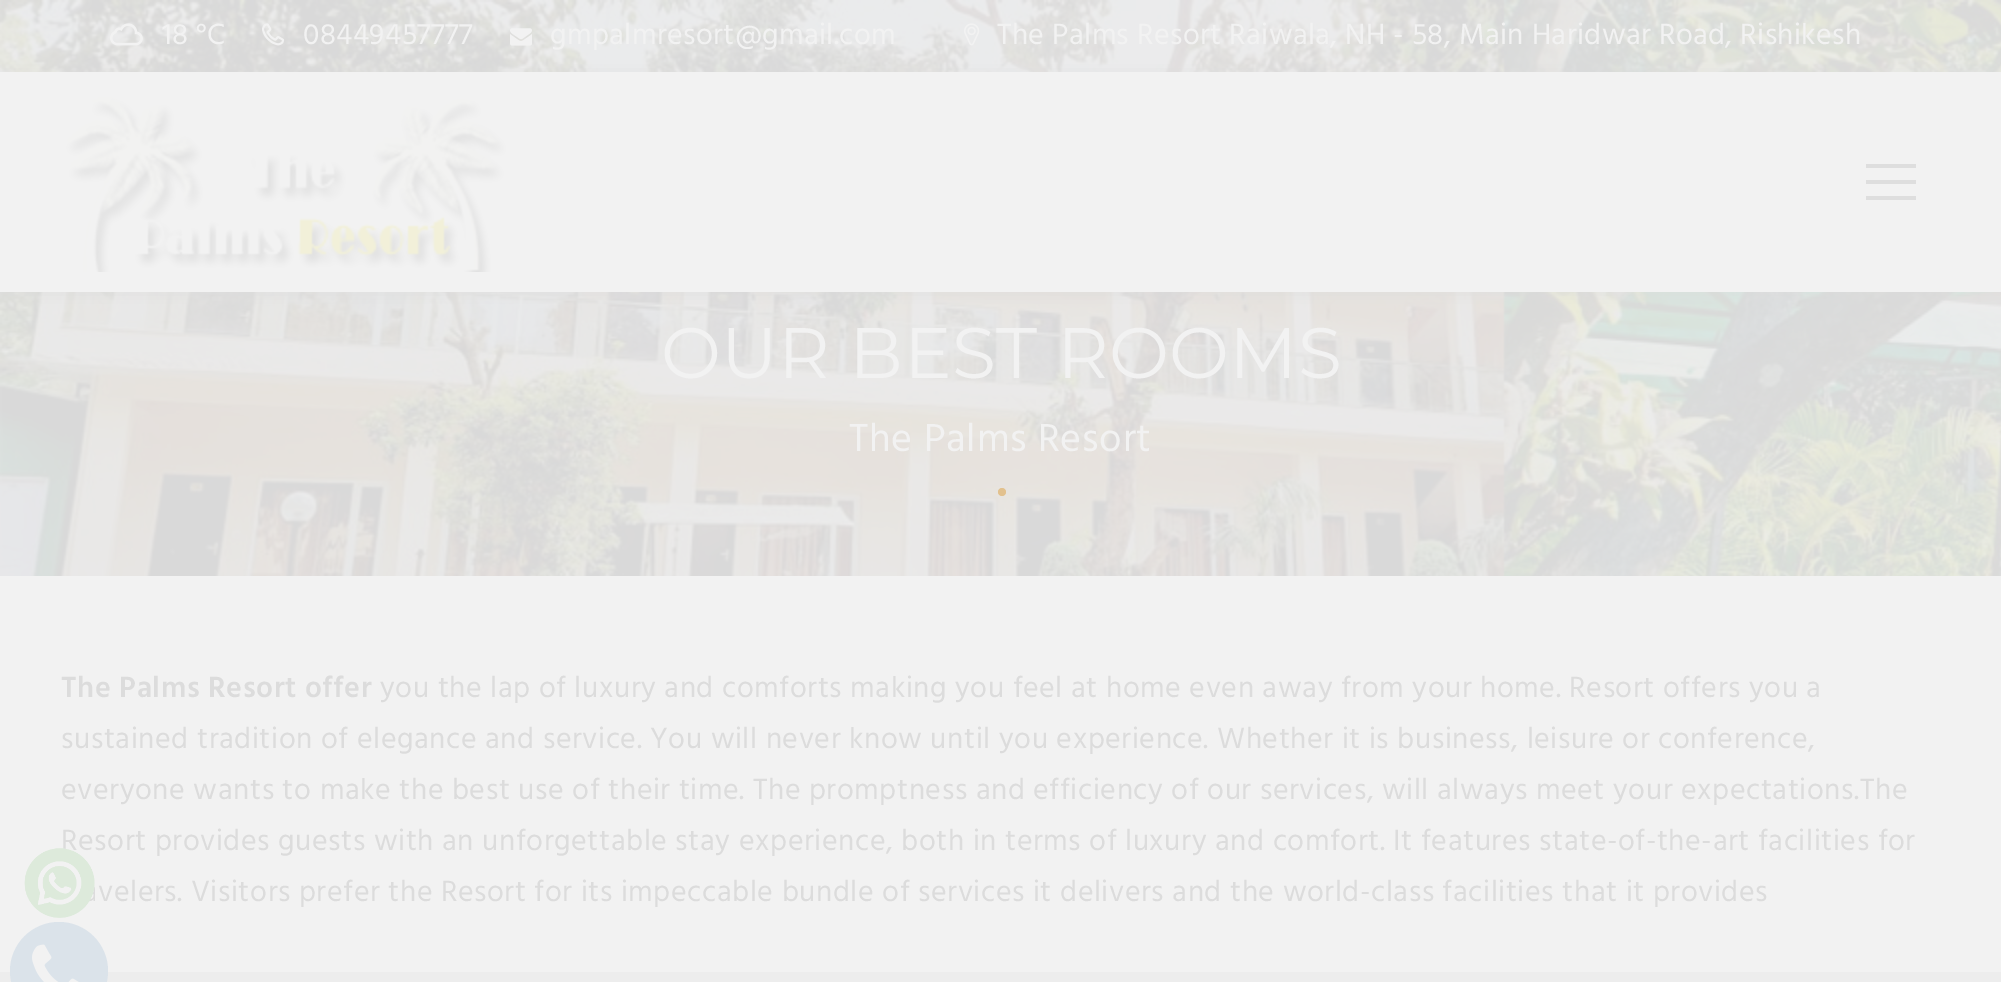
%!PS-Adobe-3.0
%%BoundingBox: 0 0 2001 982
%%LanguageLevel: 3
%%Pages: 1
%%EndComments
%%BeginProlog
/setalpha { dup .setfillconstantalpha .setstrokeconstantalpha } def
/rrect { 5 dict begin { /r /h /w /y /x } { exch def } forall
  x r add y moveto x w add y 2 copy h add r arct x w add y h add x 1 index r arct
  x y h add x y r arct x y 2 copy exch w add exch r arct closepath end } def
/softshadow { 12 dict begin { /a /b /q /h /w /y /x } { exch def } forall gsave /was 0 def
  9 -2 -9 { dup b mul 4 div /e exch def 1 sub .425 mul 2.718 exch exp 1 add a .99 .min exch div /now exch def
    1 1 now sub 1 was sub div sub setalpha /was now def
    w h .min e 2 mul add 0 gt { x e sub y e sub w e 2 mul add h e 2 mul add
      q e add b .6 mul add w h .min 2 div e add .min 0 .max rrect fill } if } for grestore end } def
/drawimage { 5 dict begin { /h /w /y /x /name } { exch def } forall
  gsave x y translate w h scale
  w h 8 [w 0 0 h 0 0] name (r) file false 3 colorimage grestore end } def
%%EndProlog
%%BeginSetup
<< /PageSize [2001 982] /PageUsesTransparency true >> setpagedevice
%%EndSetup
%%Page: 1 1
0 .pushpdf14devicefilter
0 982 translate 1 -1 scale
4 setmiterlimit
1 setgray
0 0 2001 982 rectfill
(images/6.raw) 0 0 2001 576 drawimage
(images/1.raw) 110 23 33 23 drawimage
(images/2.raw) 262 23 23 23 drawimage
(images/3.raw) 510 28 22 18 drawimage
(images/4.raw) 964 23 16 23 drawimage
0.851 setgray
0 74 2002 220 0 8 0.58 softshadow
0.949 setgray
0 72 2001 220 rectfill
(images/5.raw) 64 95 444 177 drawimage
0.871 setgray
1866 180 50 4 rectfill
1866 164 50 4 rectfill
1866 196 50 4 rectfill
0.949 setgray
0 576 2001 396 rectfill
0.886 0.757 0.557 setrgbcolor
newpath 1002 492 4 0 360 arc closepath fill
0.929 setgray
0 972 2001 10 rectfill
0.859 0.89 0.918 setrgbcolor
newpath 59 971 49 0 360 arc closepath fill
(images/8.raw) 32 944 47 38 drawimage
/Hind-Regular [30 0 0 -30 0 0] selectfont
0.949 setgray
162 44 moveto 0.4 0 (18 °C) ashow
303 44 moveto 0.4 0 (08449457777) ashow
550 44 moveto 0.4 0 (gmpalmresort@gmail.com) ashow
997 44 moveto 0.4 0 (The Palms Resort Raiwala, NH - 58, Main Haridwar Road, Rishikesh) ashow
/Montserrat-Regular [71.4 0 0 -71.4 0 0] selectfont
661 378 moveto 0.4 0 (OUR BEST ROOMS) ashow
/Hind-Regular [40 0 0 -40 0 0] selectfont
849 451 moveto 0.75 0 (The Palms Resort) ashow
/Hind-SemiBold [30 0 0 -30 0 0] selectfont
0.863 setgray
61 697 moveto 0.6 0 (The Palms Resort offer) ashow
/Hind-Regular [30 0 0 -30 0 0] selectfont
380 697 moveto 0.6 0 (you the lap of luxury and comforts making you feel at home even away from your home. Resort offers you a) ashow
61 748 moveto 0.6 0 (sustained tradition of elegance and service. You will never know until you experience. Whether it is business, leisure or conference,) ashow
61 799 moveto 0.6 0 (everyone wants to make the best use of their time. The promptness and efficiency of our services, will always meet your expectations.The) ashow
61 850 moveto 0.6 0 (Resort provides guests with an unforgettable stay experience, both in terms of luxury and comfort. It features state-of-the-art facilities for) ashow
98 901 moveto 0.6 0 (velers. Visitors prefer the Resort for its impeccable bundle of services it delivers and the world-class facilities that it provides) ashow
(images/7.raw) 24 848 71 70 drawimage
.poppdf14devicefilter showpage
%%EOF
